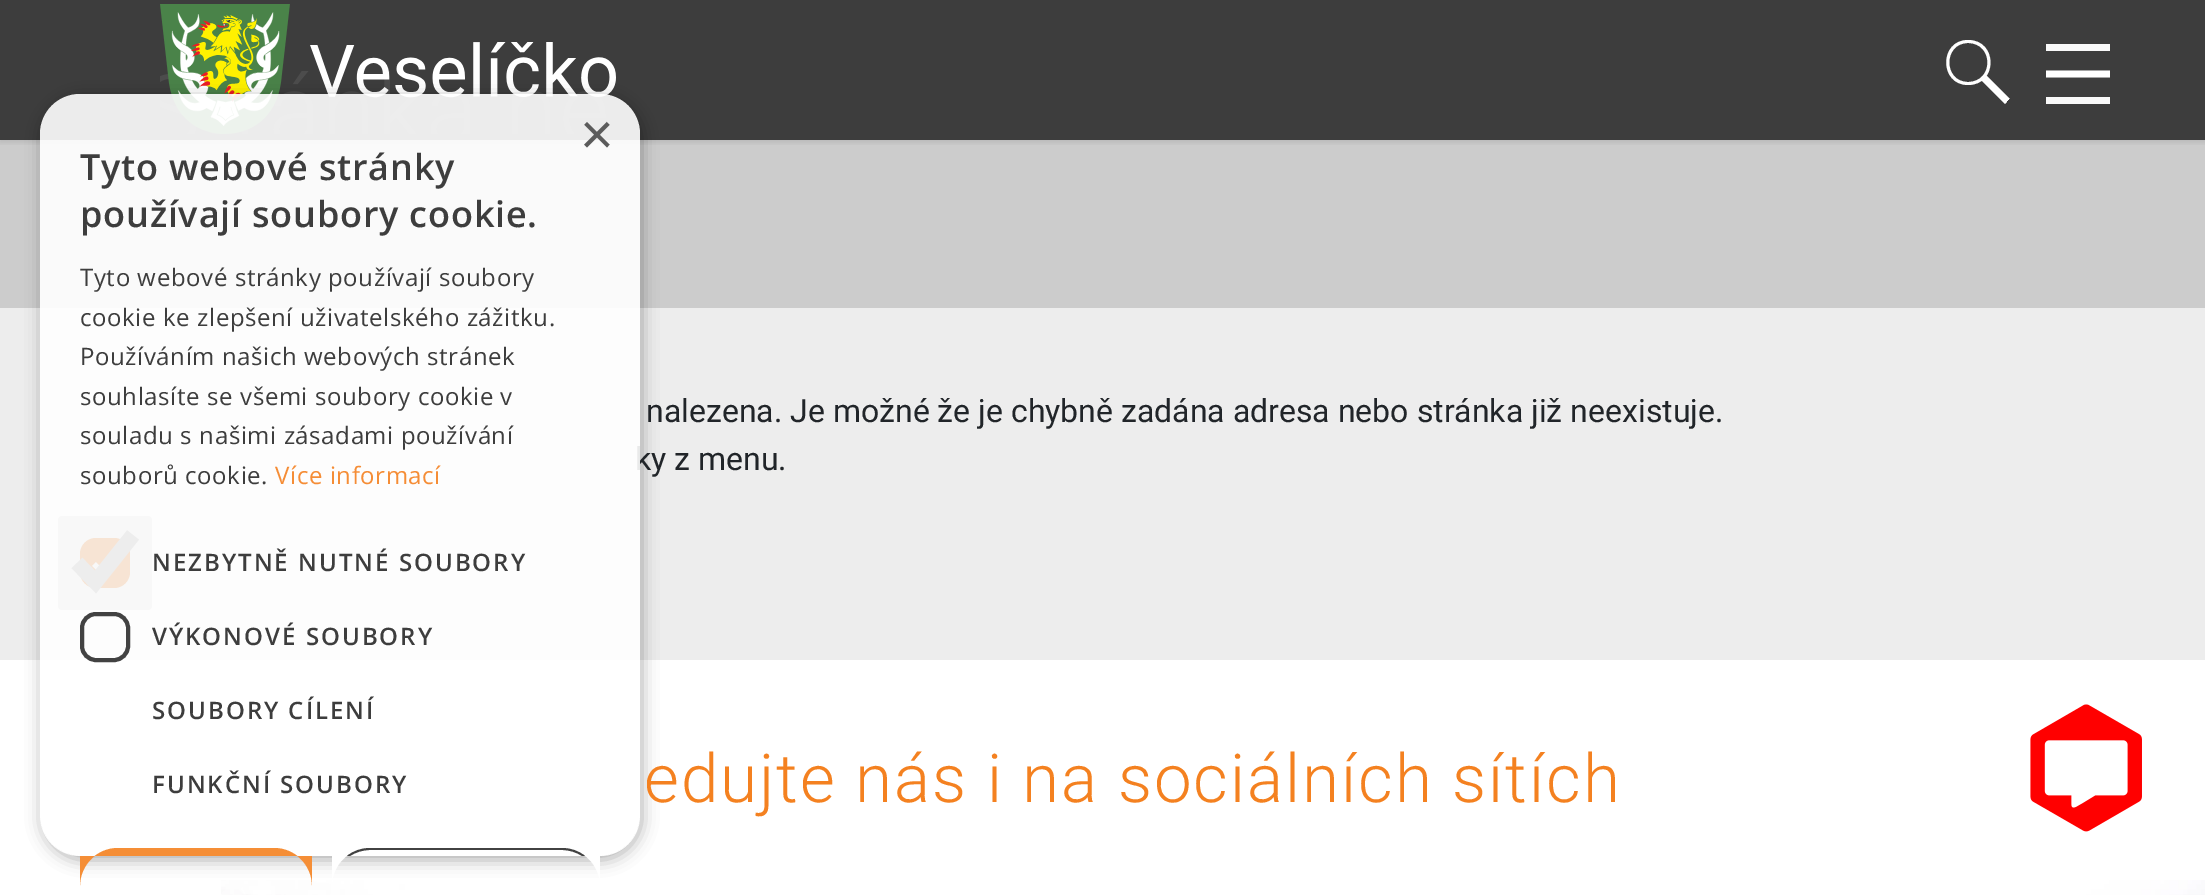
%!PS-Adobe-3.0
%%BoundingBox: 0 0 2205 895
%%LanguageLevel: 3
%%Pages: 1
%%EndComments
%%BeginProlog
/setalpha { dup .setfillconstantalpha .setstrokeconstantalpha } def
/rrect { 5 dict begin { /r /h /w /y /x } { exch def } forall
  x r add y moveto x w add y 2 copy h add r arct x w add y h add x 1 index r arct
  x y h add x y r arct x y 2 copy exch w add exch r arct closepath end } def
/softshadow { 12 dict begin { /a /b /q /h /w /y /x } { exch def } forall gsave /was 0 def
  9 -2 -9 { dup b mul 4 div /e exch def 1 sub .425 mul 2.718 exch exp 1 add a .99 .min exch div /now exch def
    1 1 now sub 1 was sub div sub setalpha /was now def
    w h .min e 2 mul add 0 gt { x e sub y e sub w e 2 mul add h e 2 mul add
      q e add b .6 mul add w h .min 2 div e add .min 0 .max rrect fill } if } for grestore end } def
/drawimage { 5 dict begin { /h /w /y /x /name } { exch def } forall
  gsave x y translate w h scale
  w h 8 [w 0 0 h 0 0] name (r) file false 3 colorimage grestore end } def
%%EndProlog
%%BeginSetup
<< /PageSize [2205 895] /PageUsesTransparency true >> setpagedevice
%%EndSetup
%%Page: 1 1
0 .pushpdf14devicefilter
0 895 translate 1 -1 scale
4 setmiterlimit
1 setgray
0 0 2205 895 rectfill
0.8 setgray
0 0 2205 308 rectfill
gsave
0 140 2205 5 rectclip
0 setgray
0 2 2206 140 0 3 0.1 softshadow
grestore
0.7 setalpha
0 setgray
0 0 2205 140 rectfill
1 setalpha
(images/1.raw) 160 4 456 130 drawimage
1 setgray
newpath 1968 43 moveto 1994 43 1994 82 1968 82 curveto 1943 82 1943 43 1968 43 curveto 1968 40 moveto 1939 40 1939 85 1968 85 curveto 1998 85 1998 40 1968 40 curveto closepath fill
gsave
1932 28 84 88 40 rrect clip newpath
6.8 setlinewidth
newpath 1983.5 77.5 moveto 2007.5 101.5 lineto stroke
grestore
0.976 setgray
2046 44 64 7 rectfill
1 setgray
6.8 setlinewidth
newpath 2046 74 moveto 2110 74 lineto stroke
0.976 setgray
2046 97 64 7 rectfill
0.929 setgray
0 308 2205 352 rectfill
(images/2.raw) 221 880 1984 15 drawimage
gsave
newpath 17 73 moveto 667 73 lineto 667 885 lineto 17 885 lineto closepath 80 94 moveto 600 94 lineto 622 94 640 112 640 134 curveto 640 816 lineto 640 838 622 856 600 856 curveto 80 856 lineto 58 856 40 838 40 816 curveto 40 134 lineto 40 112 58 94 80 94 curveto closepath eoclip newpath
0 setgray
42 98 600 762 40 8 0.32 softshadow
grestore
(images/3.raw) 2030 704 112 128 drawimage
/Roboto-Regular [32 0 0 -32 0 0] selectfont
0.129 0.145 0.161 setrgbcolor
646 422 moveto (nalezena. Je možné že je chybně zadána adresa nebo stránka již neexistuje.) show
635 470 moveto (ky z menu.) show
0.9 setalpha
1 setgray
40 94 600 762 40 rrect fill
/LiberationSans-Regular [58 0 0 -58 0 0] selectfont
1 setalpha
0.357 setgray
580 154 moveto (×) show
0.984 0.878 0.788 setrgbcolor
80 538 50 50 16 rrect fill
0.992 setgray
5.2 setlinewidth
newpath 94 564 moveto 100.5 570.5 lineto 116 555.5 lineto stroke
0.3 setalpha
0.929 setgray
58 516 94 94 4 rrect fill
1 setalpha
15 setlinewidth
newpath 77 563 moveto 95.5 582 lineto 133 535 lineto stroke
0.259 setgray
4 setlinewidth
82 614 46 46 14 rrect stroke
1 setgray
newpath 370 848 moveto 562 848 lineto 583 848 600 865 600 886 curveto 600 856 lineto 332 856 lineto 332 886 lineto 332 865 349 848 370 848 curveto closepath fill
0.259 setgray
newpath 370 848 moveto 361 848 353 851 347 856 curveto 350 856 lineto 356 852 363 850 370 850 curveto 562 850 lineto 569 850 576 852 582 856 curveto 585 856 lineto 579 851 571 848 562 848 curveto closepath fill
0.961 0.557 0.212 setrgbcolor
newpath 118 848 moveto 274 848 lineto 295 848 312 865 312 886 curveto 312 856 lineto 80 856 lineto 80 886 lineto 80 865 97 848 118 848 curveto closepath fill
/OpenSans-SemiBold [24 0 0 -24 0 0] selectfont
0.239 setgray
152 793 moveto 2 0 (FUNKČNÍ SOUBORY) ashow
152 719 moveto 2 0 (SOUBORY CÍLENÍ) ashow
152 645 moveto 2 0 (VÝKONOVÉ SOUBORY) ashow
152 571 moveto 2 0 (NEZBYTNĚ NUTNÉ SOUBORY) ashow
/OpenSans-Regular [24 0 0 -24 0 0] selectfont
0.961 0.553 0.212 setrgbcolor
275 484 moveto 0.6 0 (Více informací) ashow
0.239 setgray
80 484 moveto 0.6 0 (souborů cookie.) ashow
80 444 moveto 0.6 0 (souladu s našimi zásadami používání) ashow
80 405 moveto 0.6 0 (souhlasíte se všemi soubory cookie v) ashow
80 365 moveto 0.6 0 (Používáním našich webových stránek) ashow
80 326 moveto 0.6 0 (cookie ke zlepšení uživatelského zážitku.) ashow
80 286 moveto 0.6 0 (Tyto webové stránky používají soubory) ashow
/OpenSans-SemiBold [36 0 0 -36 0 0] selectfont
80 227 moveto 0.8 0 (používají soubory cookie.) ashow
80 180 moveto 0.8 0 (Tyto webové stránky) ashow
/Roboto-Light [67.25 0 0 -67.25 0 0] selectfont
0.957 0.506 0.125 setrgbcolor
644 802 moveto 2 0 (edujte nás i na sociálních sítích) ashow
.poppdf14devicefilter showpage
%%EOF
